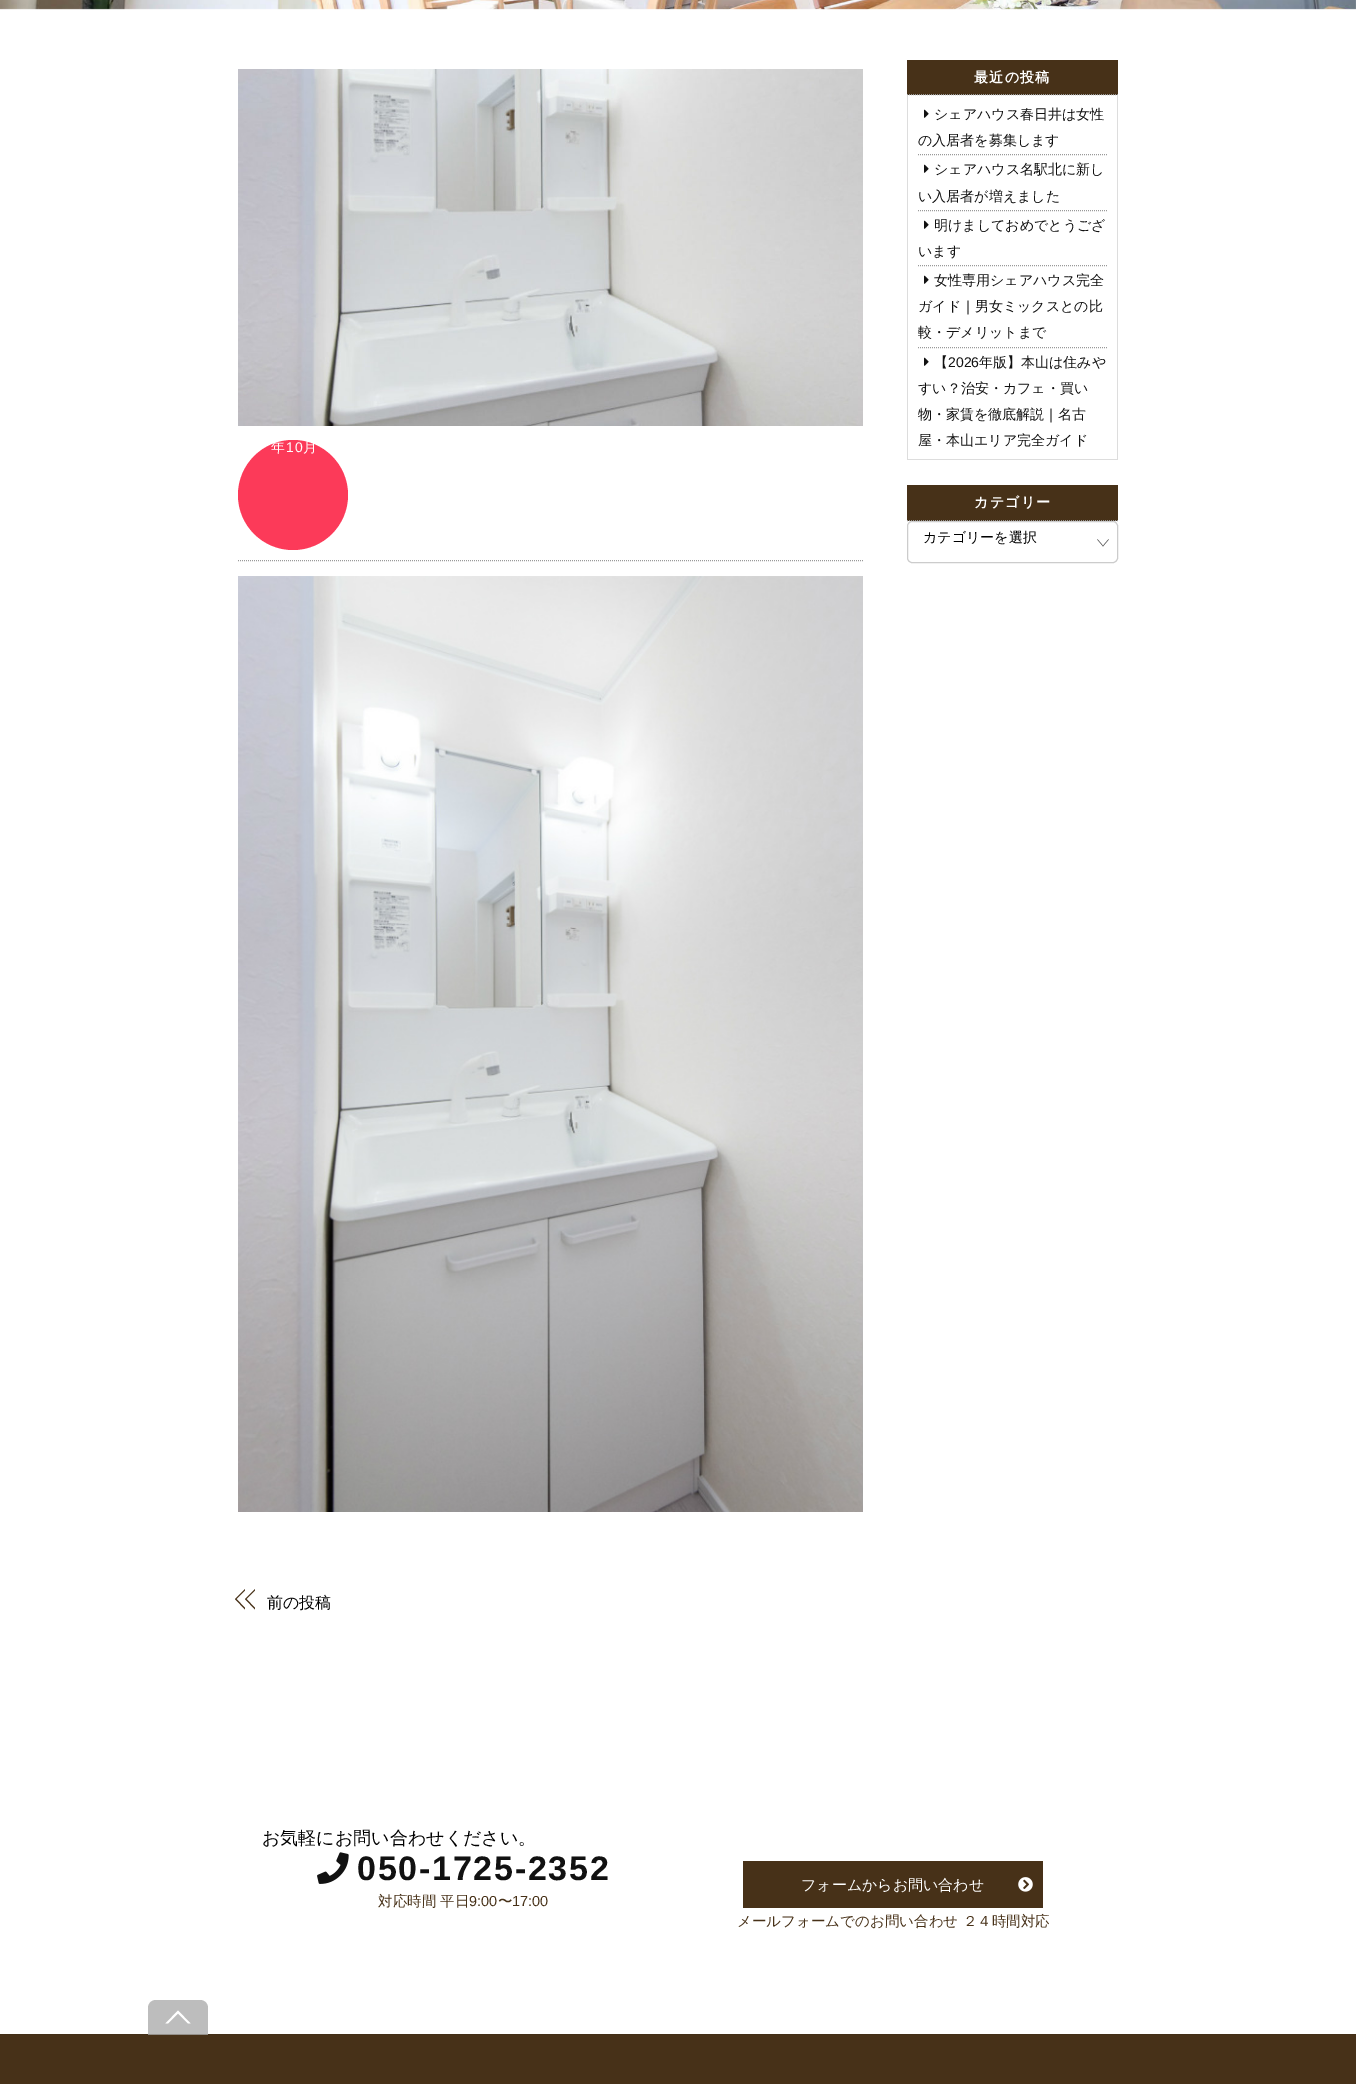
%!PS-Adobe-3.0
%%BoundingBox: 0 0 1356 2084
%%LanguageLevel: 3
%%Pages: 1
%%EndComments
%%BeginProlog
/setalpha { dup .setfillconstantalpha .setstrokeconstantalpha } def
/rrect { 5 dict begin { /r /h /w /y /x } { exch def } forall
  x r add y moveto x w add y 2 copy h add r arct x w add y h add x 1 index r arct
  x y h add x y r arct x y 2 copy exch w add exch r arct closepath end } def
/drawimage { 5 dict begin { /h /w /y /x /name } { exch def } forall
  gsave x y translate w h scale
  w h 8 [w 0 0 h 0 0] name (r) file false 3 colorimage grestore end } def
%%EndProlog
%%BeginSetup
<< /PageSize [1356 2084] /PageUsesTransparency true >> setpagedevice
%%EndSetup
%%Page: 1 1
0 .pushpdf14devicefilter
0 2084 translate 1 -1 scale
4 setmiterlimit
1 setgray
0 0 1356 2084 rectfill
(images/1.raw) 0 0 1356 10 drawimage
0.278 0.192 0.094 setrgbcolor
907 60 211 35 rectfill
0.6 setgray
[1 1] 0 setdash
newpath 907 94.5 moveto 1118 94.5 lineto stroke
0.867 setgray
1117 95 1 365 rectfill
907 459 211 1 rectfill
907 95 1 365 rectfill
0.6 setgray
newpath 918 154.5 moveto 1107 154.5 lineto stroke
(images/2.raw) 924 109 5 9 drawimage
newpath 918 210.5 moveto 1107 210.5 lineto stroke
(images/2.raw) 924 164 5 9 drawimage
newpath 918 265.5 moveto 1107 265.5 lineto stroke
(images/2.raw) 924 220 5 9 drawimage
newpath 918 347.5 moveto 1107 347.5 lineto stroke
(images/2.raw) 924 275 5 9 drawimage
(images/2.raw) 924 357 5 9 drawimage
0.278 0.192 0.094 setrgbcolor
907 485 211 36 rectfill
0.6 setgray
newpath 907 520.5 moveto 1118 520.5 lineto stroke
0.294 setgray
0.4 setlinewidth
1 setlinecap
[] 0 setdash
newpath 1097.5 539.5 moveto 1103 546 lineto 1108.5 539.5 lineto stroke
0.8 setgray
1 setlinewidth
0 setlinecap
907.5 521.5 210 41 4.5 rrect stroke
(images/3.raw) 238 69 625 357 drawimage
0.988 0.227 0.349 setrgbcolor
newpath 293 495 55 0 360 arc closepath fill
0.6 setgray
[1 1] 0 setdash
newpath 238 560.5 moveto 863 560.5 lineto stroke
(images/4.raw) 238 576 625 936 drawimage
0.278 0.192 0.094 setrgbcolor
newpath 235 1599 moveto 245 1589 lineto 245 1590.5 lineto 236.5 1599 lineto closepath 245 1609.5 moveto 235 1599 lineto 236.5 1599 lineto 245 1608 lineto closepath 245 1599 moveto 255 1589 lineto 255 1590.5 lineto 246.5 1599 lineto closepath fill
newpath 255 1609.5 moveto 245 1599 lineto 246.5 1599 lineto 255 1608 lineto closepath fill
(images/5.raw) 317 1852 32 32 drawimage
743 1861 300 47 rectfill
(images/6.raw) 1018 1877 15 15 drawimage
0 2035 1356 49 rectfill
0.263 0.184 0.09 setrgbcolor
0 2034 1356 1 rectfill
0.78 setalpha
0.671 setgray
newpath 156 2000 moveto 200 2000 lineto 204.5 2000 208 2003.5 208 2008 curveto 208 2035 lineto 148 2035 lineto 148 2008 lineto 148 2003.5 151.5 2000 156 2000 curveto closepath fill
1 setalpha
1 setgray
newpath 178 2010.5 moveto 190.5 2023.5 lineto 188 2023.5 lineto 178 2013.5 lineto closepath 165.5 2023.5 moveto 178 2010.5 lineto 178 2013.5 lineto 168 2023.5 lineto closepath fill
/WenQuanYiZenHei-Bold [14 0 0 -14 0 0] selectfont
974 82 moveto 1.25 0 (最近の投稿) ashow
/WenQuanYiZenHei-Medium [14 0 0 -14 0 0] selectfont
0.067 setgray
934 119 moveto (シェアハウス春日井は女性) show
918 145 moveto (の入居者を募集します) show
934 174 moveto (シェアハウス名駅北に新し) show
918 201 moveto (い入居者が増えました) show
934 230 moveto (明けましておめでとうござ) show
918 256 moveto (います) show
934 285 moveto (女性専用シェアハウス完全) show
918 311 moveto (ガイド｜男女ミックスとの比) show
918 337 moveto (較・デメリットまで) show
934 367 moveto (【) show
/LiberationSans-Regular [14 0 0 -14 0 0] selectfont
948 367 moveto (2026) show
/WenQuanYiZenHei-Medium [14 0 0 -14 0 0] selectfont
979 367 moveto (年版】本山は住みや) show
918 393 moveto (すい？治安・カフェ・買い) show
918 419 moveto (物・家賃を徹底解説｜名古) show
918 445 moveto (屋・本山エリア完全ガイド) show
/WenQuanYiZenHei-Bold [14 0 0 -14 0 0] selectfont
1 setgray
974 507 moveto 1.25 0 (カテゴリー) ashow
/WenQuanYiZenHei-Medium [14 0 0 -14 0 0] selectfont
0 setgray
923 542 moveto (カテゴリーを選択) show
1 setgray
271 452 moveto 1 0 (年) ashow
/LiberationSans-Regular [14 0 0 -14 0 0] selectfont
286 452 moveto 1 0 (10) ashow
/WenQuanYiZenHei-Medium [14 0 0 -14 0 0] selectfont
303 452 moveto 1 0 (月) ashow
/WenQuanYiZenHei-Medium [16 0 0 -16 0 0] selectfont
0 setgray
267 1608 moveto (前の投稿) show
/WenQuanYiZenHei-Medium [18 0 0 -18 0 0] selectfont
262 1844 moveto (お気軽にお問い合わせください。) show
/LiberationSans-Bold [34 0 0 -34 0 0] selectfont
0.067 setgray
357 1880 moveto 1.75 0 (050-1725-2352) ashow
/WenQuanYiZenHei-Medium [14.5 0 0 -14.5 0 0] selectfont
0.278 0.192 0.094 setrgbcolor
378 1906 moveto (対応時間 平日) show
/LiberationSans-Regular [14.5 0 0 -14.5 0 0] selectfont
469 1906 moveto (9:00) show
/WenQuanYiZenHei-Medium [14.5 0 0 -14.5 0 0] selectfont
498 1906 moveto (〜) show
/LiberationSans-Regular [14.5 0 0 -14.5 0 0] selectfont
512 1906 moveto (17:00) show
/WenQuanYiZenHei-Medium [15 0 0 -15 0 0] selectfont
1 setgray
801 1890 moveto (フォームからお問い合わせ) show
/WenQuanYiZenHei-Medium [14.5 0 0 -14.5 0 0] selectfont
0.278 0.192 0.094 setrgbcolor
737 1926 moveto (メールフォームでのお問い合わせ ２４時間対応) show
.poppdf14devicefilter showpage
%%EOF
